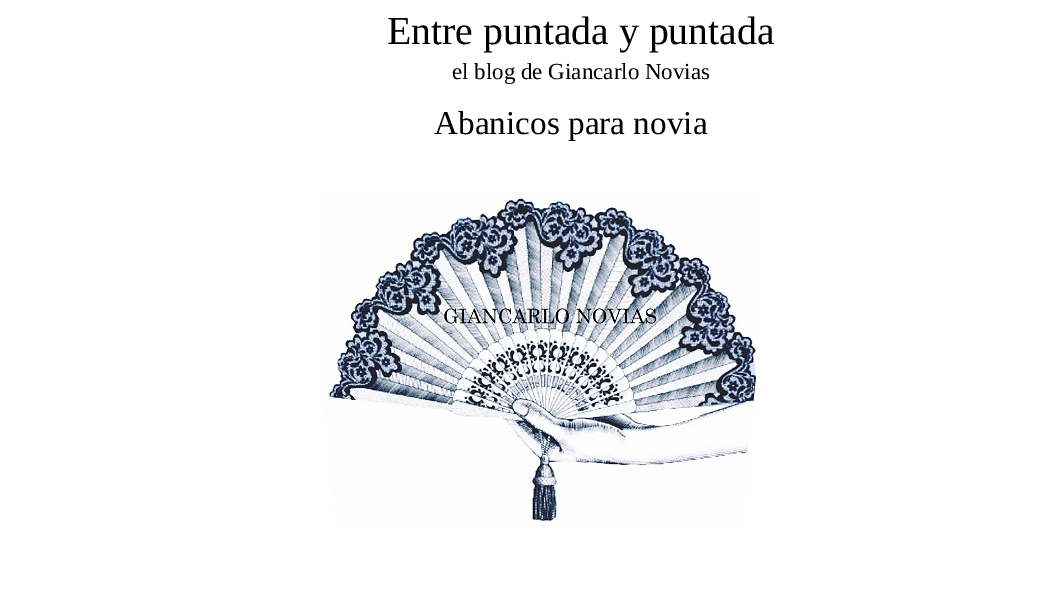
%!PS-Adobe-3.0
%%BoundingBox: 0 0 1038 608
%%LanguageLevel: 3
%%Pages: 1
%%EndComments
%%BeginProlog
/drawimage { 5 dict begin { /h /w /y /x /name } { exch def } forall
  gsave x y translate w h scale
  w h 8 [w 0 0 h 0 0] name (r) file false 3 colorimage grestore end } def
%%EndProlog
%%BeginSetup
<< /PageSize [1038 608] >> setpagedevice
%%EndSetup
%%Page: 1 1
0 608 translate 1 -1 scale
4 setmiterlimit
1 setgray
0 0 1038 608 rectfill
(images/1.raw) 323 192 436 336 drawimage
/LiberationSerif-Regular [39.75 0 0 -39.75 0 0] selectfont
0 setgray
387 44 moveto (Entre puntada y puntada) show
/LiberationSerif-Regular [23 0 0 -23 0 0] selectfont
452 79 moveto (el blog de Giancarlo Novias) show
/LiberationSerif-Regular [33.25 0 0 -33.25 0 0] selectfont
434 134 moveto (Abanicos para novia) show
showpage
%%EOF
